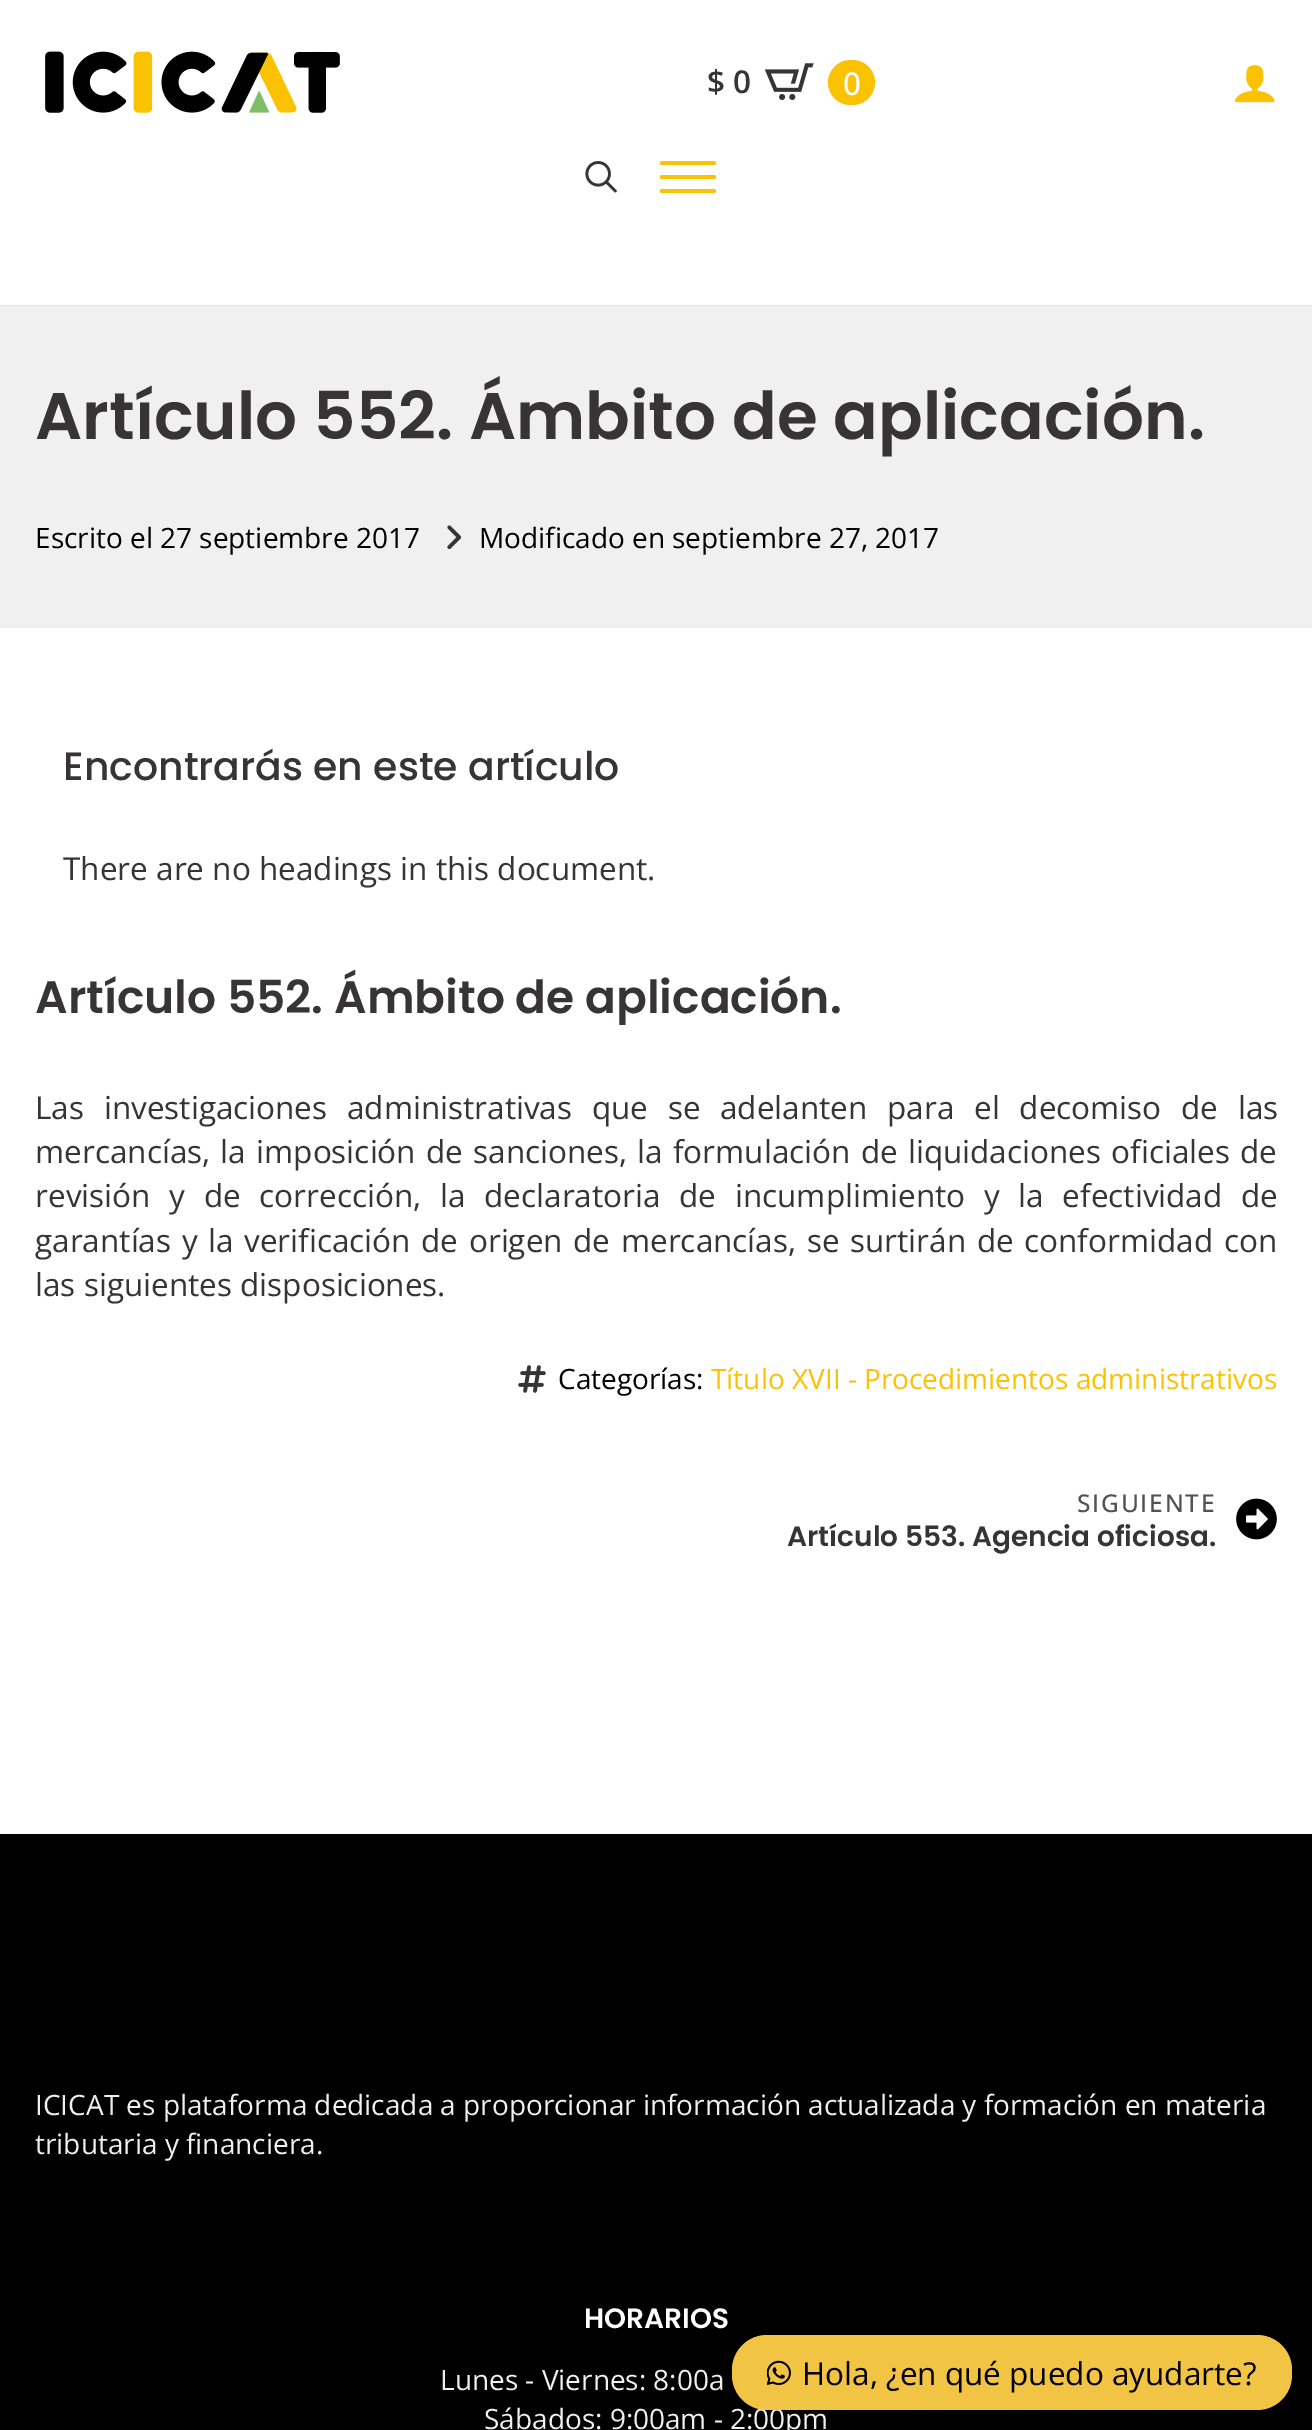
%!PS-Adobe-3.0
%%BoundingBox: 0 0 1312 2430
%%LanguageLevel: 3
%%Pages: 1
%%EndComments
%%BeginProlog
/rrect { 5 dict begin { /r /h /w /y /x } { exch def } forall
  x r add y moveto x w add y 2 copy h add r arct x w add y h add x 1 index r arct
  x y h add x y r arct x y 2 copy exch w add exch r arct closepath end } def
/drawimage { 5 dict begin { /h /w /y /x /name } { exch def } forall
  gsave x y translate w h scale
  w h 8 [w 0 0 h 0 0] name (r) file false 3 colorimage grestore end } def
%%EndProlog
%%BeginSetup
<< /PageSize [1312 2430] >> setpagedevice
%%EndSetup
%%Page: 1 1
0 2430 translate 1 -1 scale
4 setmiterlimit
1 setgray
0 0 1312 2430 rectfill
(images/1.raw) 45 51 295 62 drawimage
(images/2.raw) 765 63 49 37 drawimage
0.98 0.761 0 setrgbcolor
828 60 47 45 22.5 rrect fill
(images/3.raw) 1234 65 41 38 drawimage
(images/4.raw) 585 161 32 32 drawimage
660 175 56 4 2 rrect fill
660 161 56 4 2 rrect fill
660 189 56 4 2 rrect fill
0.898 setgray
0 305 1312 1 rectfill
0.941 setgray
0 306 1312 322 rectfill
(images/5.raw) 447 525 15 25 drawimage
(images/6.raw) 518 1365 28 28 drawimage
(images/7.raw) 1236 1498 41 42 drawimage
0 setgray
0 1834 1312 596 rectfill
/OpenSans-SemiBold [31.5 0 0 -31.5 0 0] selectfont
0.212 0.204 0.208 setrgbcolor
707 93 moveto ($ 0) show
/OpenSans-Medium [31.5 0 0 -31.5 0 0] selectfont
1 setgray
843 95 moveto (0) show
/Poppins-SemiBold [66 0 0 -66 0 0] selectfont
0.212 0.204 0.208 setrgbcolor
35 439 moveto (Artículo 552. Ámbito de aplicación.) show
/OpenSans-Regular [28 0 0 -28 0 0] selectfont
0 setgray
35 548 moveto (Escrito el 27 septiembre 2017) show
479 548 moveto (Modificado en septiembre 27, 2017) show
/Poppins-Medium [39.4 0 0 -39.4 0 0] selectfont
0.212 0.204 0.208 setrgbcolor
63 780 moveto (Encontrarás en este artículo) show
/OpenSans-Regular [31.5 0 0 -31.5 0 0] selectfont
63 880 moveto (There are no headings in this document.) show
/Poppins-SemiBold [45.5 0 0 -45.5 0 0] selectfont
35 1013 moveto (Artículo 552. Ámbito de aplicación.) show
/OpenSans-Regular [31.5 0 0 -31.5 0 0] selectfont
35 1119 moveto 11.5 0 32 (Las investigaciones administrativas que se adelanten para el decomiso de las) widthshow
35 1163 moveto 2 0 32 (mercancías, la imposición de sanciones, la formulación de liquidaciones oficiales de) widthshow
35 1207 moveto 10.5 0 32 (revisión y de corrección, la declaratoria de incumplimiento y la efectividad de) widthshow
35 1252 moveto 2.4 0 32 (garantías y la verificación de origen de mercancías, se surtirán de conformidad con) widthshow
35 1296 moveto (las siguientes disposiciones.) show
/OpenSans-Regular [28 0 0 -28 0 0] selectfont
0 setgray
558 1389 moveto (Categorías:) show
0.98 0.761 0 setrgbcolor
711 1389 moveto (Título XVII - Procedimientos administrativos) show
/OpenSans-Medium [24.5 0 0 -24.5 0 0] selectfont
0.322 setgray
1077 1512 moveto 1.75 0 (SIGUIENTE) ashow
/Poppins-SemiBold [28 0 0 -28 0 0] selectfont
0.212 0.204 0.208 setrgbcolor
787 1546 moveto (Artículo 553. Agencia oficiosa.) show
/OpenSans-Regular [28 0 0 -28 0 0] selectfont
0.941 setgray
35 2115 moveto (ICICAT es plataforma dedicada a proporcionar información actualizada y formación en materia) show
35 2154 moveto (tributaria y financiera.) show
/Poppins-SemiBold [28 0 0 -28 0 0] selectfont
1 setgray
584 2328 moveto (HORARIOS) show
/OpenSans-Regular [28 0 0 -28 0 0] selectfont
0.941 setgray
440 2390 moveto (Lunes - Viernes: 8:00a) show
484 2429 moveto (Sábados: 9:00am - 2:00pm) show
0.949 0.769 0.263 setrgbcolor
732 2335 560 75 35 rrect fill
(images/8.raw) 767 2360 24 26 drawimage
/OpenSans-Regular [31.5 0 0 -31.5 0 0] selectfont
0 setgray
802 2385 moveto (Hola, ¿en qué puedo ayudarte?) show
showpage
%%EOF
